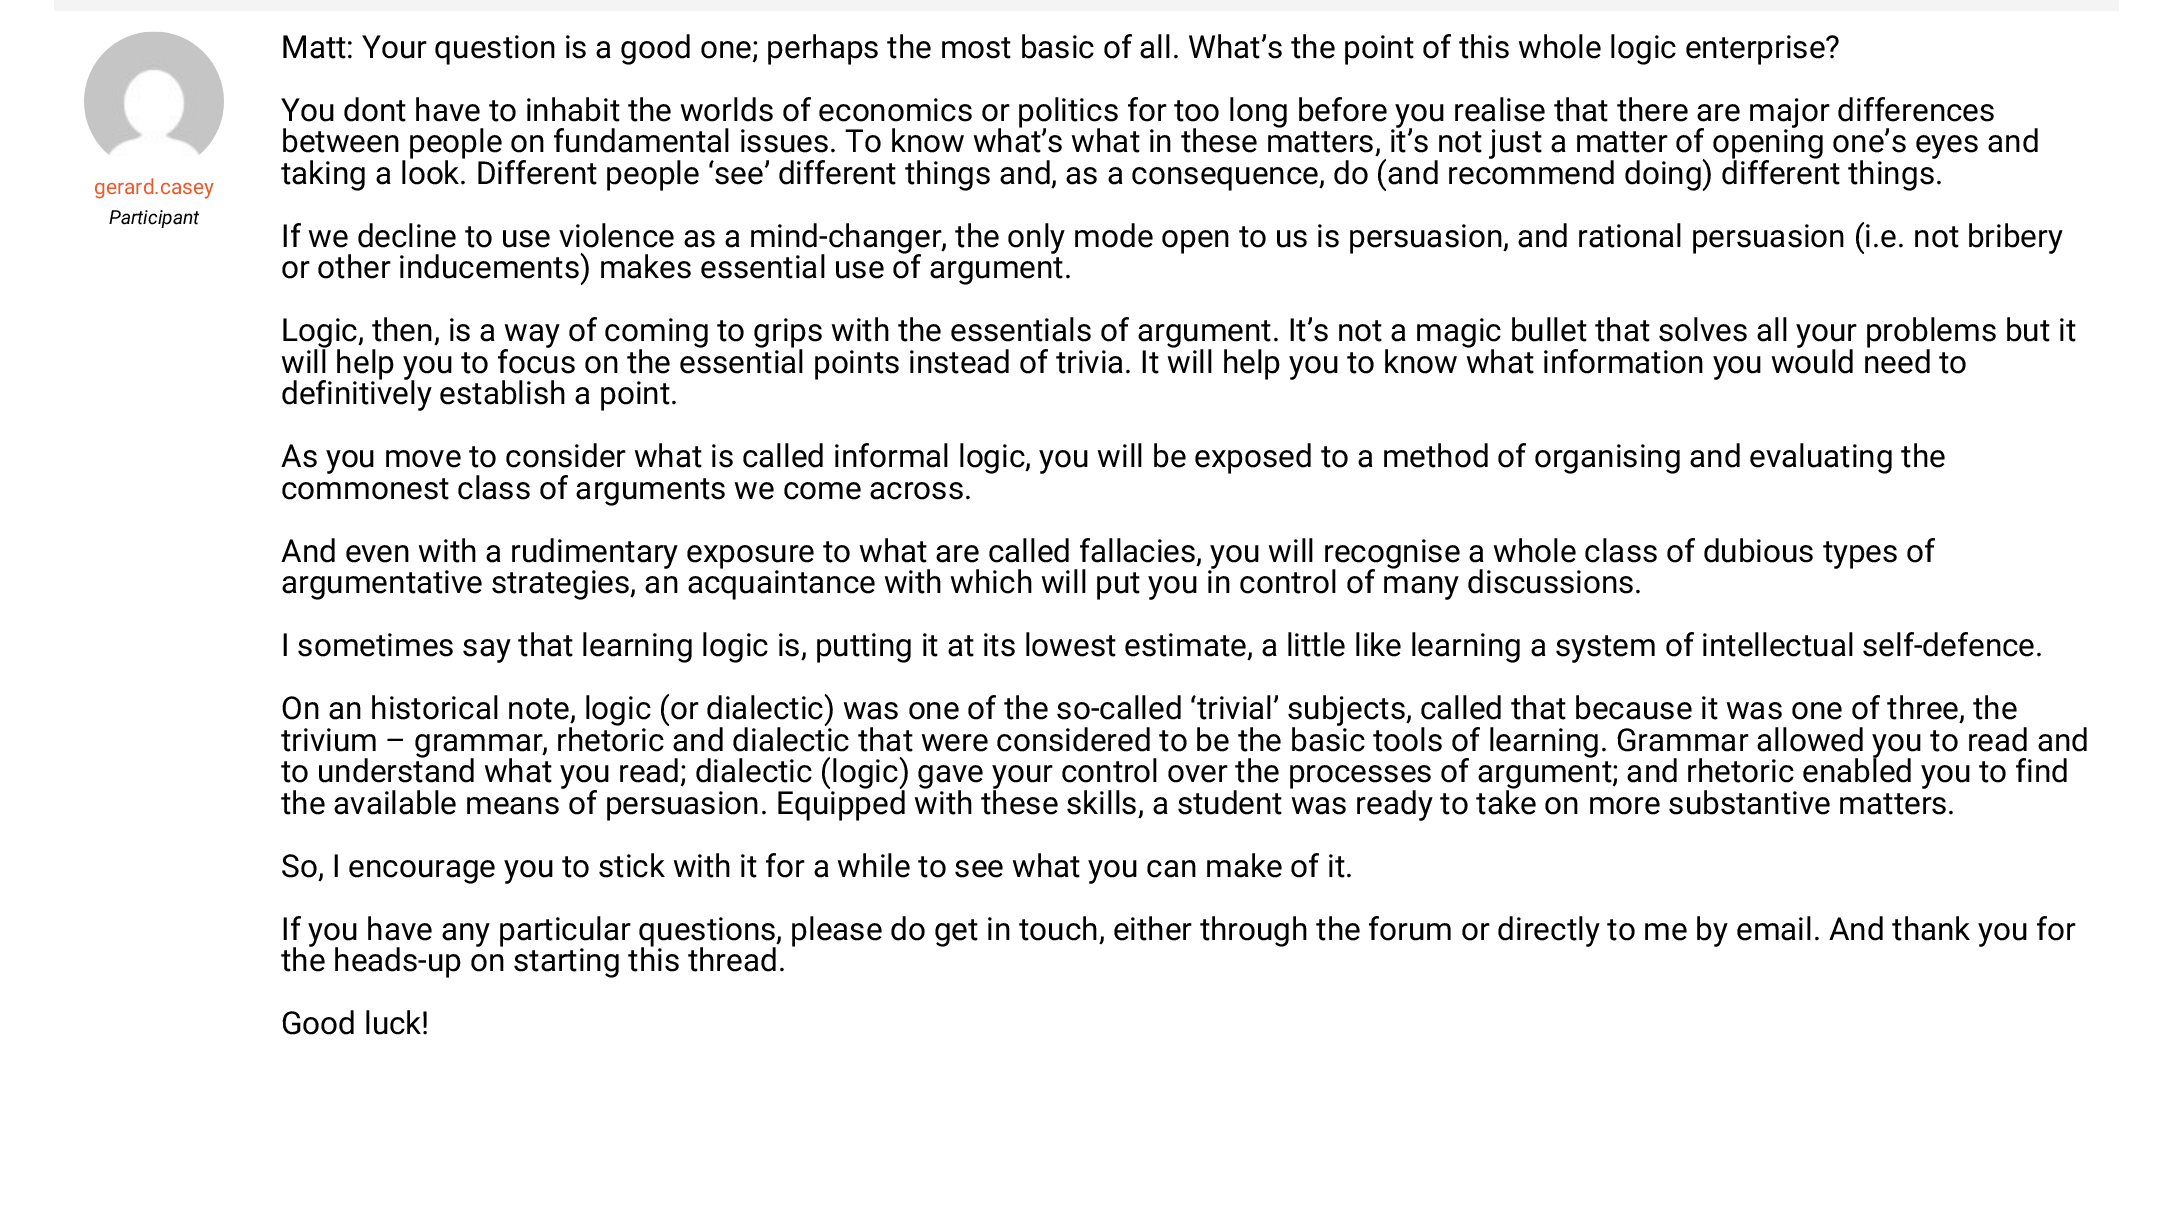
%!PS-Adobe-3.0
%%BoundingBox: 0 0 2171 1207
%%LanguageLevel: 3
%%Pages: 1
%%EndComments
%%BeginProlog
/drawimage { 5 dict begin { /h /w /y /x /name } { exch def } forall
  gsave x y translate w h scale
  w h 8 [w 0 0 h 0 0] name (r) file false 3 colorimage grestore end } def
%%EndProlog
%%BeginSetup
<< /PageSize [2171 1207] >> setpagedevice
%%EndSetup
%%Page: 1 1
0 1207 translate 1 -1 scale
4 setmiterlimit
1 setgray
0 0 2171 1207 rectfill
0.957 setgray
54 0 2065 11 rectfill
(images/1.raw) 84 31 140 125 drawimage
/Roboto-Regular [21 0 0 -21 0 0] selectfont
0.945 0.345 0.157 setrgbcolor
94 194 moveto (gerard.casey) show
/Roboto-Italic [19.25 0 0 -19.25 0 0] selectfont
0 setgray
109 224 moveto (Participant) show
/Roboto-Regular [31.5 0 0 -31.5 0 0] selectfont
281 58 moveto (Matt: Your question is a good one; perhaps the most basic of all. What’s the point of this whole logic enterprise?) show
281 121 moveto (You dont have to inhabit the worlds of economics or politics for too long before you realise that there are major differences) show
281 152 moveto (between people on fundamental issues. To know what’s what in these matters, it’s not just a matter of opening one’s eyes and) show
281 184 moveto (taking a look. Different people ‘see’ different things and, as a consequence, do \(and recommend doing\) different things.) show
281 247 moveto (If we decline to use violence as a mind-changer, the only mode open to us is persuasion, and rational persuasion \(i.e. not bribery) show
281 278 moveto (or other inducements\) makes essential use of argument.) show
281 341 moveto (Logic, then, is a way of coming to grips with the essentials of argument. It’s not a magic bullet that solves all your problems but it) show
281 373 moveto (will help you to focus on the essential points instead of trivia. It will help you to know what information you would need to) show
281 404 moveto (definitively establish a point.) show
281 467 moveto (As you move to consider what is called informal logic, you will be exposed to a method of organising and evaluating the) show
281 499 moveto (commonest class of arguments we come across.) show
281 562 moveto (And even with a rudimentary exposure to what are called fallacies, you will recognise a whole class of dubious types of) show
281 593 moveto (argumentative strategies, an acquaintance with which will put you in control of many discussions.) show
281 656 moveto (I sometimes say that learning logic is, putting it at its lowest estimate, a little like learning a system of intellectual self-defence.) show
281 719 moveto (On an historical note, logic \(or dialectic\) was one of the so-called ‘trivial’ subjects, called that because it was one of three, the) show
281 751 moveto (trivium – grammar, rhetoric and dialectic that were considered to be the basic tools of learning. Grammar allowed you to read and) show
281 782 moveto (to understand what you read; dialectic \(logic\) gave your control over the processes of argument; and rhetoric enabled you to find) show
281 814 moveto (the available means of persuasion. Equipped with these skills, a student was ready to take on more substantive matters.) show
281 877 moveto (So, I encourage you to stick with it for a while to see what you can make of it.) show
281 940 moveto (If you have any particular questions, please do get in touch, either through the forum or directly to me by email. And thank you for) show
281 971 moveto (the heads-up on starting this thread.) show
281 1034 moveto (Good luck!) show
showpage
%%EOF
